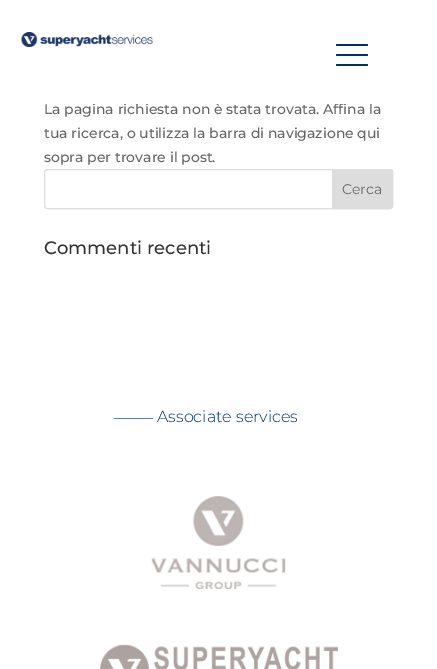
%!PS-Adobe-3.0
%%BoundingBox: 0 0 437 669
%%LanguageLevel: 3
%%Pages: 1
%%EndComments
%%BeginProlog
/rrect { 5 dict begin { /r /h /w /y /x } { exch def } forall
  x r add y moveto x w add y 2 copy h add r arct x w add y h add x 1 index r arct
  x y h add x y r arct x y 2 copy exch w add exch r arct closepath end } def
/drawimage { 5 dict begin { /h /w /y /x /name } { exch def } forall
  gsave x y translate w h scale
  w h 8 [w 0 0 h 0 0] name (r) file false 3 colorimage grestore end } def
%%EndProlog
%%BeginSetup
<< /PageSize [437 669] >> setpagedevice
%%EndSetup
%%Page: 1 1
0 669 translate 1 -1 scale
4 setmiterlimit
1 setgray
0 0 437 669 rectfill
(images/1.raw) 21 32 132 15 drawimage
0 0.192 0.408 setrgbcolor
336 44 32 2 1 rrect fill
336 54 32 2 1 rrect fill
336 64 32 2 1 rrect fill
0.867 setgray
44.5 169.5 348 39 2.5 rrect stroke
newpath 332.5 169.5 moveto 390 169.5 lineto 391.5 169.5 392.5 170.5 392.5 172 curveto 392.5 206 lineto 392.5 207.5 391.5 208.5 390 208.5 curveto 332.5 208.5 lineto closepath gsave fill grestore
stroke
0.38 0.498 0.631 setrgbcolor
114 418 39 1 rectfill
(images/2.raw) 151 496 135 93 drawimage
(images/3.raw) 100 644 238 25 drawimage
/Montserrat-Thin [14 0 0 -14 0 0] selectfont
0.4 setgray
44 114 moveto (La pagina richiesta non è stata trovata. Affina la) show
1 setgray
93 103 279 1 rectfill
0.4 setgray
44 138 moveto (tua ricerca, o utilizza la barra di navigazione qui) show
44 162 moveto (sopra per trovare il post.) show
/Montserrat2-Thin [14 0 0 -14 0 0] selectfont
342 194 moveto (Cerca) show
/Montserrat-Thin [18 0 0 -18 0 0] selectfont
0.2 setgray
44 254 moveto (Commenti recenti) show
/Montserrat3-Thin [16 0 0 -16 0 0] selectfont
0 0.192 0.408 setrgbcolor
157 422 moveto (Associate services) show
showpage
%%EOF
